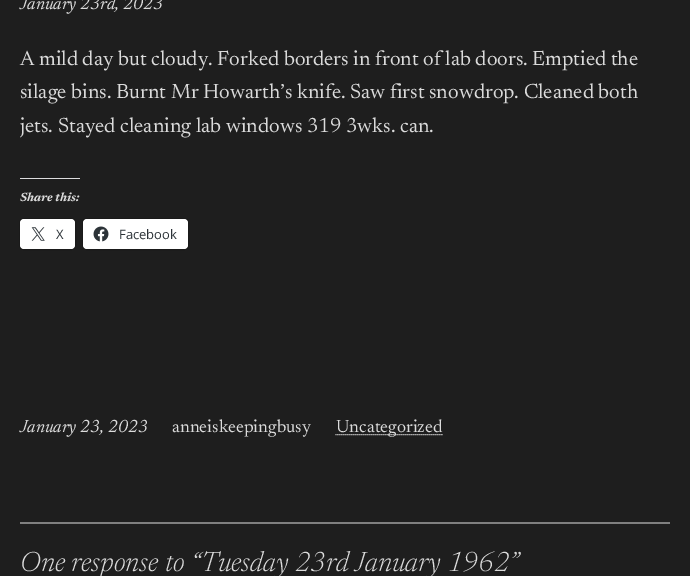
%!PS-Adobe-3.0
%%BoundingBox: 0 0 690 576
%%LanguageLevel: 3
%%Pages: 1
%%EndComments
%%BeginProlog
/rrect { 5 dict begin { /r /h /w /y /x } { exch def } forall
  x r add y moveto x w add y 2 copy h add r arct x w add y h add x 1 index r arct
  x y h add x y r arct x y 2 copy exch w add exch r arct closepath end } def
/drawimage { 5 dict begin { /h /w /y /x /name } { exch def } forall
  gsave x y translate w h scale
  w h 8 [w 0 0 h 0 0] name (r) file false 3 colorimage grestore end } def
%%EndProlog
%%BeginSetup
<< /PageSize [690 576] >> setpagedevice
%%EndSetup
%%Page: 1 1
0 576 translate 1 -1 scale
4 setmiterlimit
0.118 setgray
0 0 690 576 rectfill
0.863 0.863 0.871 setrgbcolor
20 178 60 1 rectfill
0.102 setgray
19.5 218.5 56 31 4.5 rrect stroke
1 setgray
20 219 55 30 4 rrect fill
(images/1.raw) 31 227 14 14 drawimage
0.102 setgray
82.5 218.5 106 31 4.5 rrect stroke
1 setgray
83 219 105 30 4 rrect fill
(images/2.raw) 93 226 16 16 drawimage
0.859 setgray
[1 1] 0 setdash
newpath 335.5 434.5 moveto 442.5 434.5 lineto stroke
0.502 setgray
20 522 650 2 rectfill
/Newsreader-Italic [18 0 0 -18 0 0] selectfont
0.859 setgray
20 9 moveto (January 23rd, 2023) show
/Newsreader-Regular [20.8 0 0 -20.8 0 0] selectfont
20 65 moveto (A mild day but cloudy. Forked borders in front of lab doors. Emptied the) show
20 98 moveto (silage bins. Burnt Mr Howarth’s knife. Saw first snowdrop. Cleaned both) show
20 132 moveto (jets. Stayed cleaning lab windows 319 3wks. can.) show
/Newsreader-BoldItalic [12 0 0 -12 0 0] selectfont
20 201 moveto (Share this:) show
/OpenSans-Regular [13 0 0 -13 0 0] selectfont
0.173 0.2 0.22 setrgbcolor
56 239 moveto (X) show
119 239 moveto (Facebook) show
/Newsreader-Italic [18 0 0 -18 0 0] selectfont
0.859 setgray
20 432 moveto (January 23, 2023) show
/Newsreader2-Regular [18 0 0 -18 0 0] selectfont
172 432 moveto (anneiskeepingbusy) show
336 432 moveto (Uncategorized) show
/Newsreader-LightItalic [28 0 0 -28 0 0] selectfont
20 571 moveto (One response to “Tuesday 23rd January 1962”) show
showpage
%%EOF
